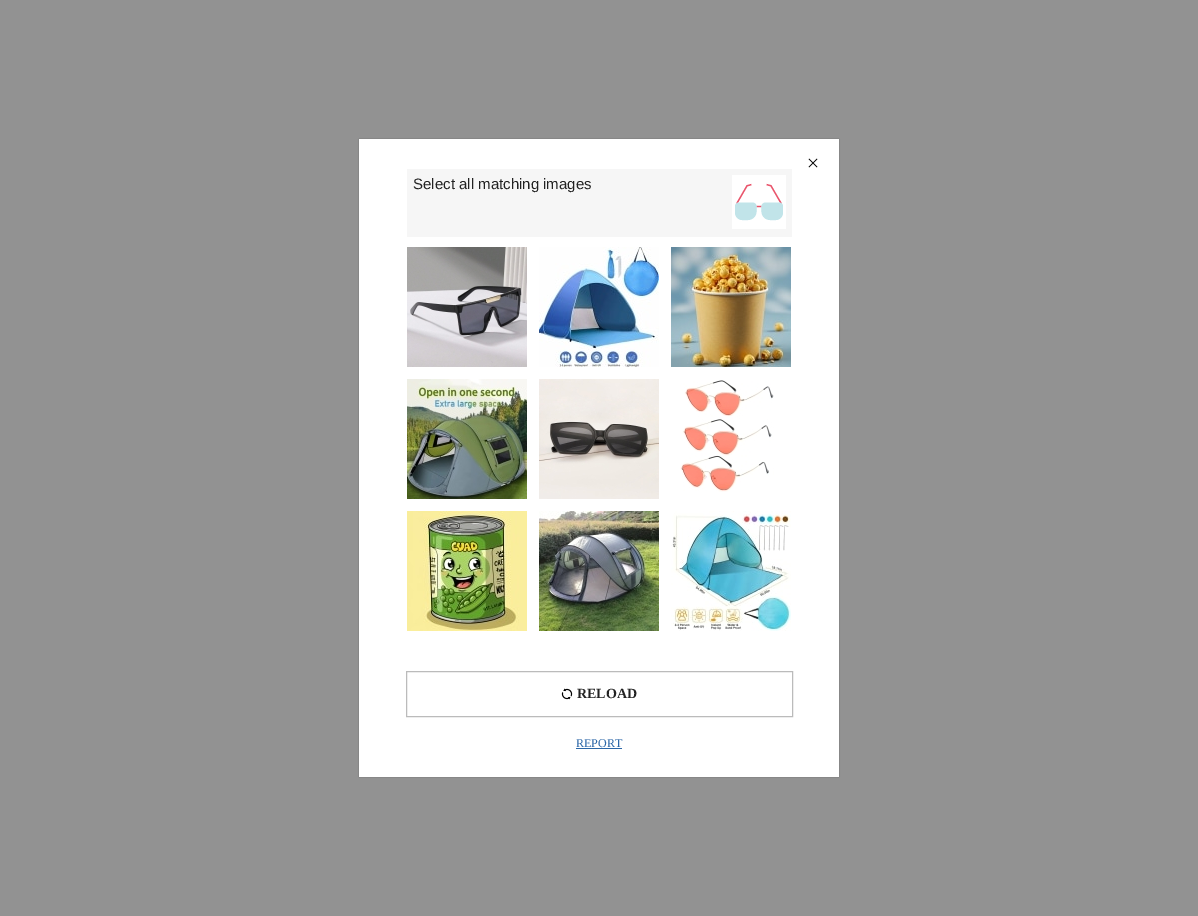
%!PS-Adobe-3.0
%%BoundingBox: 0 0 1198 916
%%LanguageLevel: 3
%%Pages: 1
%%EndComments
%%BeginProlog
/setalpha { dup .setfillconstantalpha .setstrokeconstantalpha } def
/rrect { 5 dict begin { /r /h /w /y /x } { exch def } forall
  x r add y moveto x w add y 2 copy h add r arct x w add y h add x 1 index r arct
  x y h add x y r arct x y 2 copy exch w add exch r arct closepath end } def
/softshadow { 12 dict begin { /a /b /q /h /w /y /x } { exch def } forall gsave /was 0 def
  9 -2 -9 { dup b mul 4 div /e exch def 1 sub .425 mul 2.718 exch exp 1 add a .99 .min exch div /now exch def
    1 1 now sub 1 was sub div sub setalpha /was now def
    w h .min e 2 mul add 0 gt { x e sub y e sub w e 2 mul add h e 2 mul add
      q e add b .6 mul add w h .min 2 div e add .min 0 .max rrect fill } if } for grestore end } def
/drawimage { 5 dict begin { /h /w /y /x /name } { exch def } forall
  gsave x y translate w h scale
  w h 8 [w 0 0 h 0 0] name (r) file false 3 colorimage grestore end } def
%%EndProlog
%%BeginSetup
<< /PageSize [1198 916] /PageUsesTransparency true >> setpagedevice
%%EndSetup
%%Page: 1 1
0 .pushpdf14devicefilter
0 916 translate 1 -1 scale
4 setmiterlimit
0.573 setgray
0 0 1198 916 rectfill
0 setgray
359 139 480 638 0 0.5 0.3 softshadow
1 setgray
359 139 480 638 rectfill
(images/1.raw) 808 158 10 10 drawimage
0.965 setgray
407 169 385 68 rectfill
1 setgray
732 175 54 54 rectfill
(images/2.raw) 735 183 48 38 drawimage
(images/3.raw) 407 247 120 120 drawimage
(images/4.raw) 539 247 120 120 drawimage
(images/5.raw) 671 247 120 120 drawimage
(images/6.raw) 407 379 120 120 drawimage
(images/7.raw) 539 379 120 120 drawimage
(images/8.raw) 680 380 94 112 drawimage
(images/9.raw) 407 511 120 120 drawimage
(images/10.raw) 539 511 120 120 drawimage
(images/11.raw) 671 511 120 120 drawimage
0.733 setgray
406.5 671.5 386 45 rectstroke
(images/12.raw) 561 688 12 12 drawimage
0.176 0.408 0.659 setrgbcolor
576 748 46 1 rectfill
/LiberationSans-Regular [15 0 0 -15 0 0] selectfont
0.133 setgray
413 189 moveto (Select all matching images) show
/LiberationSerif-Bold [14 0 0 -14 0 0] selectfont
577 698 moveto (RELOAD) show
/LiberationSerif-Regular [12 0 0 -12 0 0] selectfont
0.176 0.408 0.659 setrgbcolor
576 747 moveto (REPORT) show
.poppdf14devicefilter showpage
%%EOF
